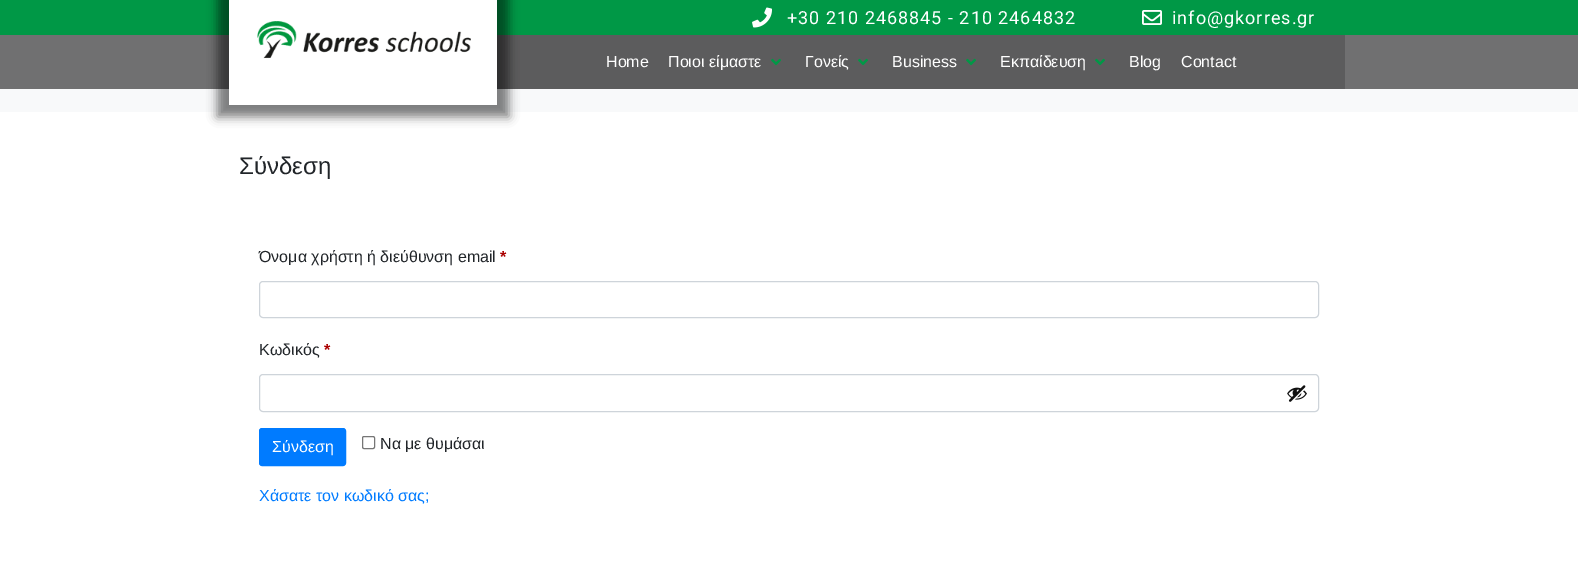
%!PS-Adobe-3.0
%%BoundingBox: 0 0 1578 577
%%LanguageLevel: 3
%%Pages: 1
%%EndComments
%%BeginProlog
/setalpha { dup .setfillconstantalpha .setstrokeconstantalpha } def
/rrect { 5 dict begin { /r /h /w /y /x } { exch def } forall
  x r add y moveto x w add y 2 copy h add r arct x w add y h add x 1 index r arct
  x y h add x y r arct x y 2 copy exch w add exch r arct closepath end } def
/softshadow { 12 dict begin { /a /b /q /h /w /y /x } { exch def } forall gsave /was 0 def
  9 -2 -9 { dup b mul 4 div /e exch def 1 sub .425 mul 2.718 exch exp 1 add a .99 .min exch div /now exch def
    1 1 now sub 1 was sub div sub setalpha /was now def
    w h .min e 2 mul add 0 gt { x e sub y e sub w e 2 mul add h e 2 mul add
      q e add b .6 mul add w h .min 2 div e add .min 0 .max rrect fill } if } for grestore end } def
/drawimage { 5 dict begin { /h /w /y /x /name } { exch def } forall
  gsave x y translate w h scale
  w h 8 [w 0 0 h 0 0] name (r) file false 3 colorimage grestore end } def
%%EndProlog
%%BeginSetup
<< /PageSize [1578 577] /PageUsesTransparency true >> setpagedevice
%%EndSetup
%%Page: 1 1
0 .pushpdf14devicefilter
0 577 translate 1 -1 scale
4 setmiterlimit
1 setgray
0 0 1578 577 rectfill
0 0.596 0.275 setrgbcolor
0 0 1578 35 rectfill
(images/1.raw) 752 7 20 21 drawimage
(images/2.raw) 1142 10 20 15 drawimage
0.973 0.976 0.98 setrgbcolor
0 35 1578 77 rectfill
0.55 setalpha
0 setgray
0 35 1578 54 rectfill
1 setalpha
217 -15 292 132 0 5 0.5 softshadow
1 setgray
229 0 268 105 rectfill
(images/3.raw) 257 21 214 38 drawimage
0.18 setalpha
0.008 0.004 0.004 setrgbcolor
497 35 848 54 rectfill
1 setalpha
(images/4.raw) 771 58 10 8 drawimage
(images/4.raw) 858 58 10 8 drawimage
(images/4.raw) 966 58 10 8 drawimage
(images/4.raw) 1095 58 10 8 drawimage
0.808 0.831 0.855 setrgbcolor
259.5 281.5 1059 36 3.5 rrect stroke
259.5 374.5 1059 37 3.5 rrect stroke
(images/5.raw) 1287 385 20 17 drawimage
0 0.482 1 setrgbcolor
259.5 428.5 86 37 2.5 rrect gsave fill grestore
stroke
0.463 setgray
362.5 436.5 12 12 1.5 rrect stroke
/Roboto-Regular [18 0 0 -18 0 0] selectfont
1 setgray
787 24 moveto 1 0 (+30 210 2468845 - 210 2464832) ashow
1172 24 moveto 1 0 (info@gkorres.gr) ashow
/LiberationSans-Regular [16 0 0 -16 0 0] selectfont
606 67 moveto (Home) show
668 67 moveto (Ποιοι είμαστε) show
805 67 moveto (Γονείς) show
892 67 moveto (Business) show
1000 67 moveto (Εκπαίδευση) show
1129 67 moveto (Blog) show
1181 67 moveto (Contact) show
/LiberationSans-Regular [24 0 0 -24 0 0] selectfont
0.129 0.145 0.161 setrgbcolor
239 174 moveto (Σύνδεση) show
/LiberationSans-Regular [16 0 0 -16 0 0] selectfont
259 262 moveto (Όνομα χρήστη ή διεύθυνση email) show
/LiberationSans-Bold [16 0 0 -16 0 0] selectfont
0.667 0 0 setrgbcolor
500 262 moveto (*) show
/LiberationSans-Regular [16 0 0 -16 0 0] selectfont
0.129 0.145 0.161 setrgbcolor
259 355 moveto (Κωδικός) show
/LiberationSans-Bold [16 0 0 -16 0 0] selectfont
0.667 0 0 setrgbcolor
324 355 moveto (*) show
/LiberationSans-Regular [16 0 0 -16 0 0] selectfont
1 setgray
272 452 moveto (Σύνδεση) show
0.129 0.145 0.161 setrgbcolor
380 449 moveto (Να με θυμάσαι) show
0 0.482 1 setrgbcolor
259 501 moveto (Χάσατε τον κωδικό σας;) show
.poppdf14devicefilter showpage
%%EOF
